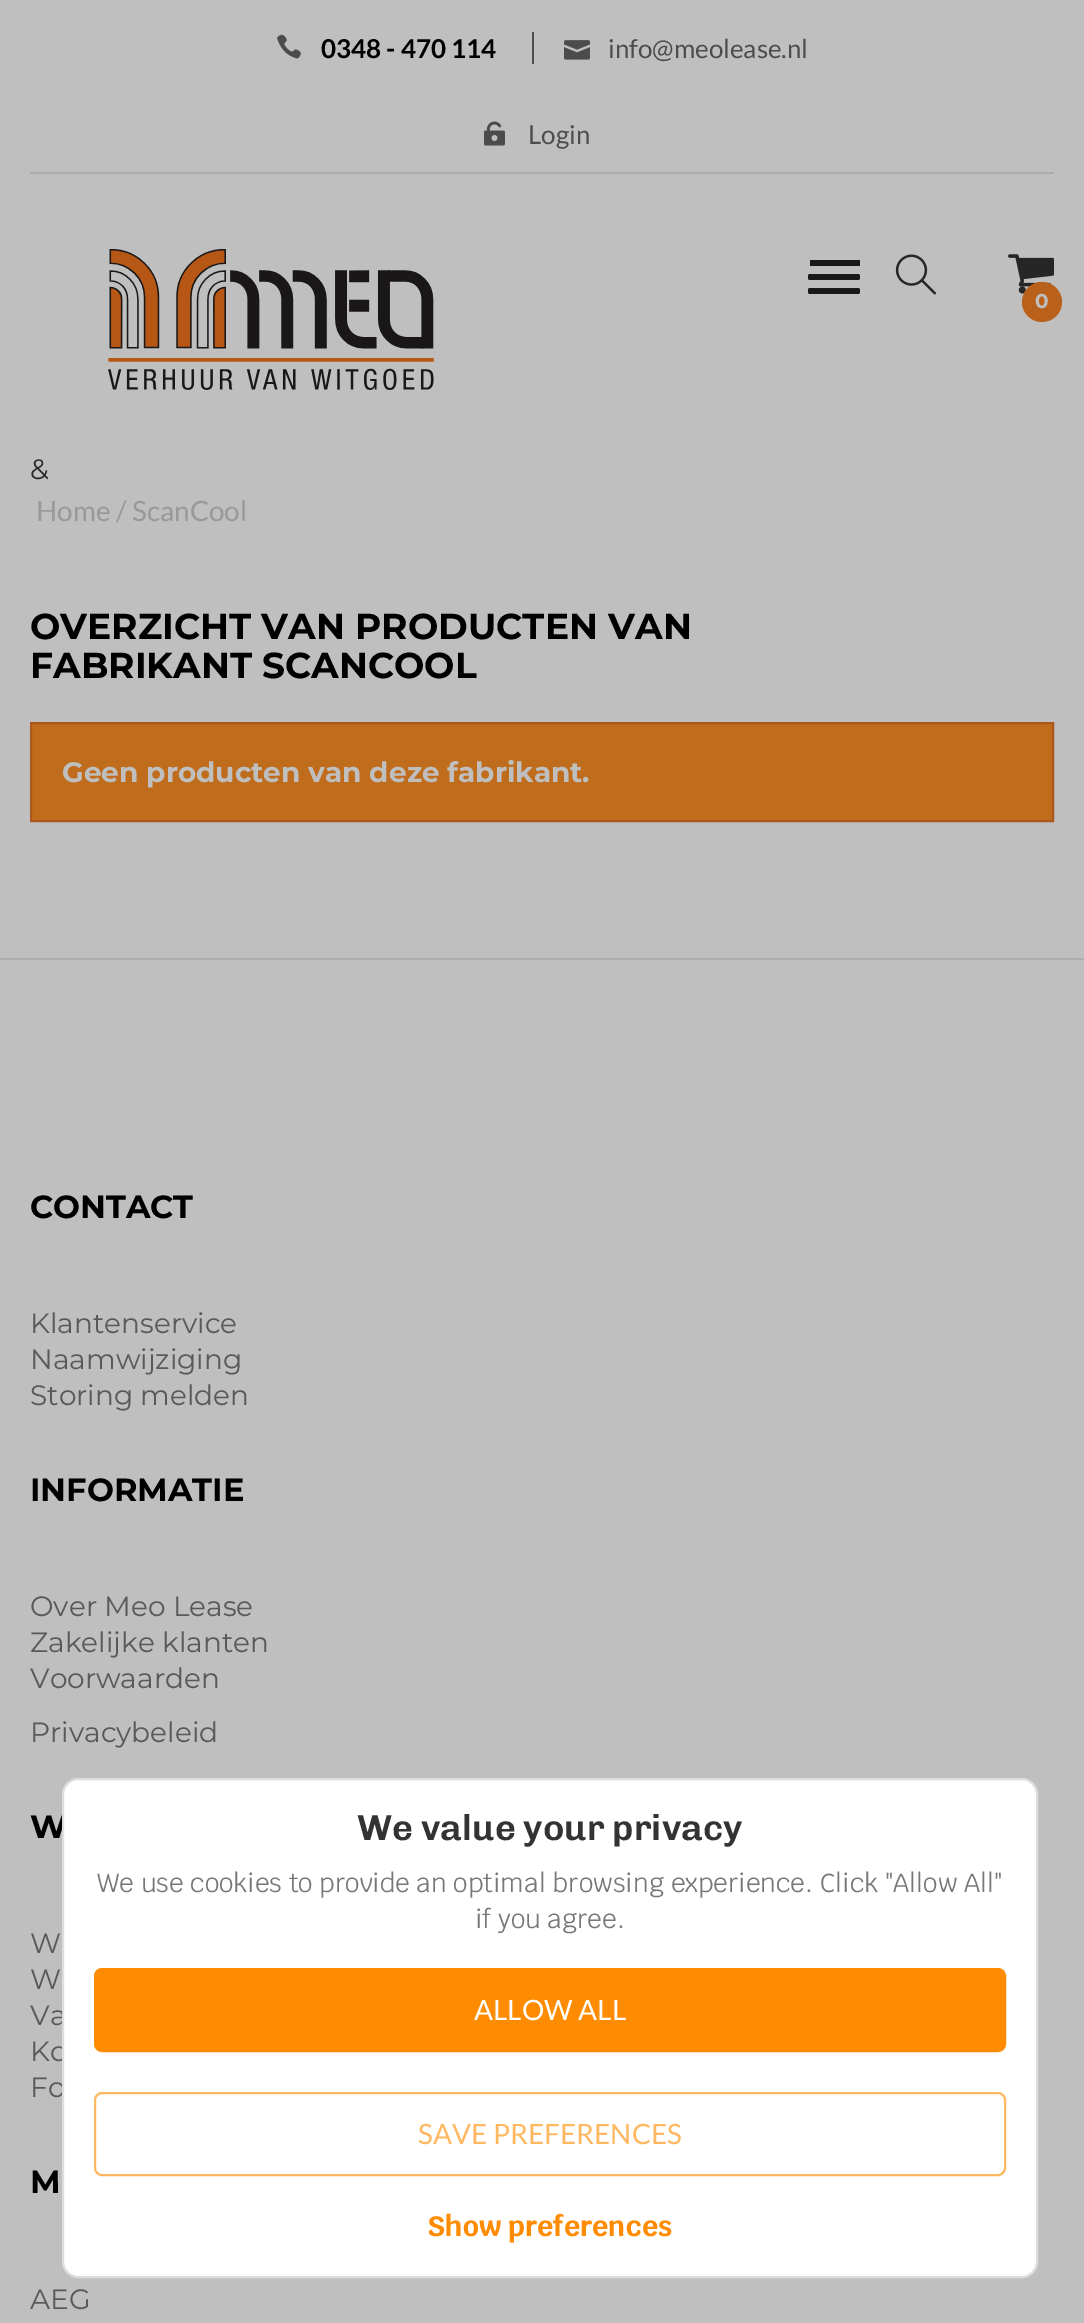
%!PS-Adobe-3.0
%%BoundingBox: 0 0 1084 2323
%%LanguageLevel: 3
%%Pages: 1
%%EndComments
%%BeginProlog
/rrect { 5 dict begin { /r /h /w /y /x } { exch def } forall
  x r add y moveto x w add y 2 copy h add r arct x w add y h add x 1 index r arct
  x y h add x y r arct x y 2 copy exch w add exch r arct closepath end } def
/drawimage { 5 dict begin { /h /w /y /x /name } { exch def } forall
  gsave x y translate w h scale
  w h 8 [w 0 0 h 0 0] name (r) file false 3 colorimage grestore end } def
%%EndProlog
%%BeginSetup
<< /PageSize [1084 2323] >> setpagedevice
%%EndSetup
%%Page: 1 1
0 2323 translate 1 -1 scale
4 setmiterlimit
0.749 setgray
0 0 1084 2323 rectfill
0.675 setgray
30 172 1024 2 rectfill
(images/1.raw) 277 34 24 25 drawimage
0.302 setgray
532 32 2 32 rectfill
(images/2.raw) 564 40 26 20 drawimage
(images/3.raw) 484 121 21 25 drawimage
(images/4.raw) 108 249 326 141 drawimage
0.098 setgray
810 260 50 6 rectfill
808 274 52 6 2 rrect fill
808 288 52 6 2 rrect fill
(images/5.raw) 895 254 41 41 drawimage
(images/6.raw) 1008 254 46 40 drawimage
0.725 0.38 0.102 setrgbcolor
newpath 1042 302 20 0 360 arc closepath fill
0.749 0.427 0.114 setrgbcolor
newpath 31 723 moveto 1053 723 lineto 1053 821 lineto 31 821 lineto closepath gsave fill grestore
0.671 0.345 0.125 setrgbcolor
2 setlinewidth
stroke
0.675 setgray
0 958 1084 2 rectfill
/Lato-Bold [26 0 0 -26 0 0] selectfont
0 setgray
321 58 moveto (0348 - 470 114) show
/Lato-Regular [26 0 0 -26 0 0] selectfont
0.302 setgray
608 58 moveto (info@meolease.nl) show
528 144 moveto (Login) show
/Montserrat-Bold [20 0 0 -20 0 0] selectfont
0.749 setgray
1035 308 moveto (0) show
/Montserrat-Regular [28 0 0 -28 0 0] selectfont
0.149 setgray
30 479 moveto (&) show
/Lato-Regular [28 0 0 -28 0 0] selectfont
0.6 setgray
36 521 moveto (Home) show
116 521 moveto (/) show
132 521 moveto (ScanCool) show
/Montserrat-Bold [36 0 0 -36 0 0] selectfont
0 setgray
30 639 moveto (OVERZICHT VAN PRODUCTEN VAN) show
30 678 moveto (FABRIKANT SCANCOOL) show
/Montserrat-Bold [28 0 0 -28 0 0] selectfont
0.749 setgray
62 782 moveto (Geen producten van deze fabrikant.) show
/Montserrat-Bold [32 0 0 -32 0 0] selectfont
0 setgray
30 1218 moveto (CONTACT) show
/Montserrat-Regular [28 0 0 -28 0 0] selectfont
0.349 setgray
30 1333 moveto (Klantenservice) show
30 1369 moveto (Naamwijziging) show
30 1405 moveto (Storing melden) show
/Montserrat-Bold [32 0 0 -32 0 0] selectfont
0 setgray
30 1501 moveto (INFORMATIE) show
/Montserrat-Regular [28 0 0 -28 0 0] selectfont
0.349 setgray
30 1616 moveto (Over Meo Lease) show
30 1652 moveto (Zakelijke klanten) show
30 1688 moveto (Voorwaarden) show
30 1742 moveto (Privacybeleid) show
/Montserrat-Bold [32 0 0 -32 0 0] selectfont
0 setgray
30 1838 moveto (W) show
/Montserrat-Regular [28 0 0 -28 0 0] selectfont
0.349 setgray
30 1953 moveto (W) show
30 1989 moveto (W) show
30 2025 moveto (Va) show
30 2061 moveto (Ko) show
30 2097 moveto (Fo) show
/Montserrat-Bold [32 0 0 -32 0 0] selectfont
0 setgray
30 2193 moveto (M) show
/Montserrat-Regular [28 0 0 -28 0 0] selectfont
0.349 setgray
30 2309 moveto (AEG) show
1 setgray
63 1779 974 498 15 rrect gsave fill grestore
0.867 setgray
stroke
/Chivo-SemiBold [36 0 0 -36 0 0] selectfont
0.2 setgray
357 1840 moveto (We value your privacy) show
/Krub-Regular [26 0 0 -26 0 0] selectfont
0.467 setgray
97 1892 moveto (We use cookies to provide an optimal browsing experience. Click "Allow All") show
475 1928 moveto (if you agree.) show
1 0.549 0 setrgbcolor
95 1969 910 82 7 rrect gsave fill grestore
stroke
/Lato-Regular [28 0 0 -28 0 0] selectfont
1 setgray
474 2020 moveto (ALLOW ALL) show
1 0.722 0.384 setrgbcolor
95 2093 910 82 7 rrect stroke
418 2144 moveto (SAVE PREFERENCES) show
/Krub-Bold [28 0 0 -28 0 0] selectfont
1 0.549 0 setrgbcolor
427 2236 moveto (Show preferences) show
showpage
%%EOF
